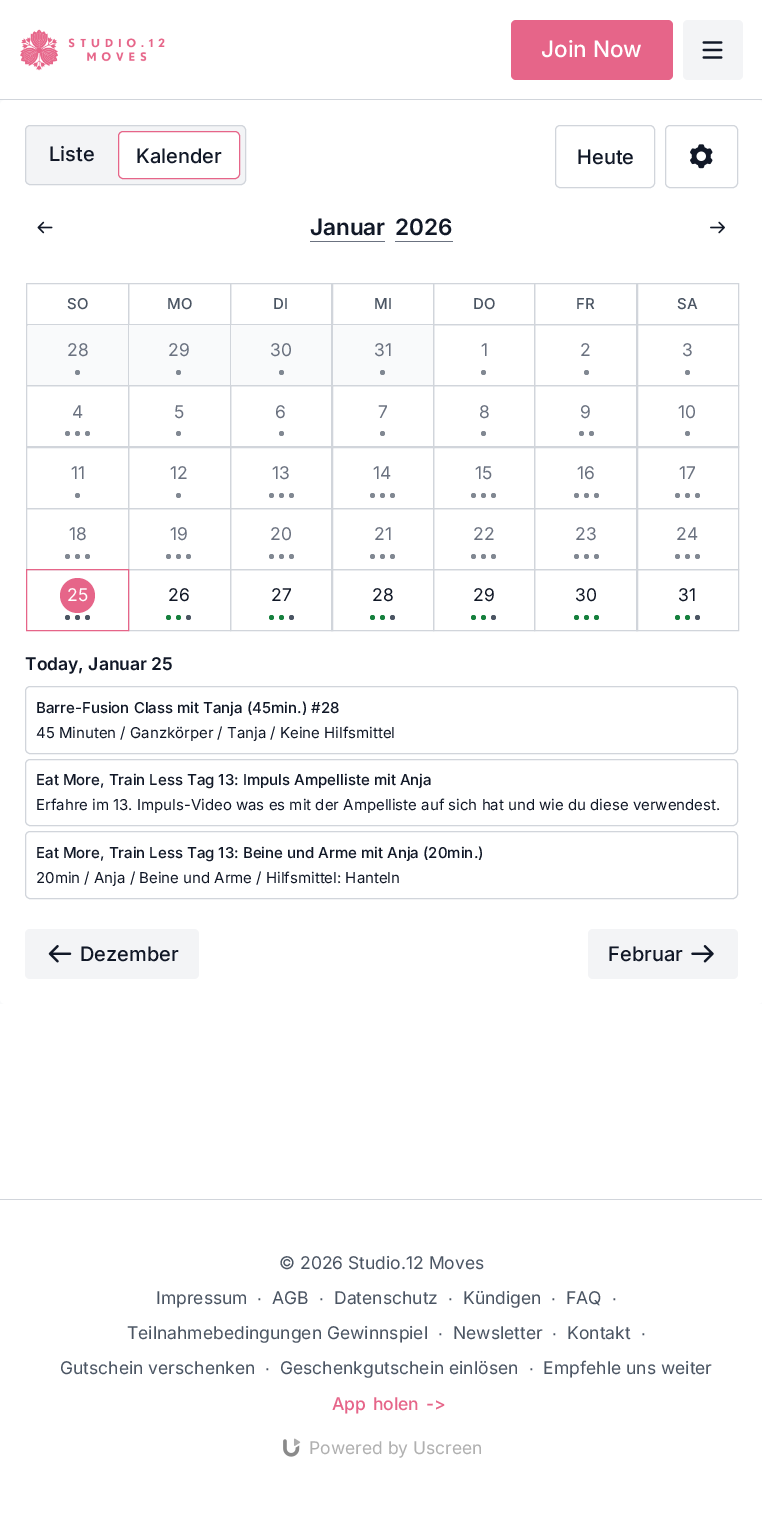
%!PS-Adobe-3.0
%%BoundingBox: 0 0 762 1518
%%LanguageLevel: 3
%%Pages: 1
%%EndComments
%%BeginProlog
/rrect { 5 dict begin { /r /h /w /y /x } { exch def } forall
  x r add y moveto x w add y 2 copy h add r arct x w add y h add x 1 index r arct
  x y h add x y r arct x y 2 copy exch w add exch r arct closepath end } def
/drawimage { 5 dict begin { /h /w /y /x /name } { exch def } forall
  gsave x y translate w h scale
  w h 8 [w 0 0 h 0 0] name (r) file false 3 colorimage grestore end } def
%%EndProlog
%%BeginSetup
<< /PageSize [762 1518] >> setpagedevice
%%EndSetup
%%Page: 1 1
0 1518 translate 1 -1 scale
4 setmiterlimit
1 setgray
0 0 762 1518 rectfill
0.82 0.835 0.859 setrgbcolor
0 99 762 1 rectfill
(images/1.raw) 20 29 145 42 drawimage
0.902 0.396 0.537 setrgbcolor
511 20 162 60 5 rrect fill
0.953 0.957 0.965 setrgbcolor
683 20 60 60 5 rrect fill
(images/2.raw) 702 41 21 18 drawimage
0.976 0.98 0.984 setrgbcolor
0 100 762 904 rectfill
1 setgray
0 100 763 904 5 rrect fill
0.953 0.957 0.965 setrgbcolor
25.5 125.5 220 59 4.5 rrect gsave fill grestore
0.82 0.835 0.859 setrgbcolor
stroke
1 setgray
118.5 131.5 121 47 4.5 rrect gsave fill grestore
0.902 0.396 0.537 setrgbcolor
stroke
0.82 0.835 0.859 setrgbcolor
555.5 125.5 99 62 4.5 rrect stroke
665.5 125.5 72 62 4.5 rrect stroke
(images/3.raw) 690 144 23 25 drawimage
(images/4.raw) 37 221 16 13 drawimage
0.42 0.447 0.502 setrgbcolor
310 241 75 1 rectfill
395 241 58 1 rectfill
(images/5.raw) 710 221 15 13 drawimage
0.82 0.835 0.859 setrgbcolor
26.5 283.5 102 41 rectstroke
128.5 283.5 102 41 rectstroke
230.5 283.5 102 41 rectstroke
331.5 283.5 102 41 rectstroke
433.5 283.5 101 41 rectstroke
534.5 283.5 103 41 rectstroke
636.5 283.5 102 41 rectstroke
26.5 324.5 102 61 rectstroke
0.976 0.98 0.984 setrgbcolor
28 325 100 60 rectfill
0.498 0.529 0.569 setrgbcolor
newpath 77.5 372.5 2.5 0 360 arc closepath fill
0.82 0.835 0.859 setrgbcolor
128.5 324.5 102 61 rectstroke
0.976 0.98 0.984 setrgbcolor
129 325 101 60 rectfill
0.498 0.529 0.569 setrgbcolor
newpath 178.5 372.5 2.5 0 360 arc closepath fill
0.82 0.835 0.859 setrgbcolor
230.5 324.5 102 61 rectstroke
0.976 0.98 0.984 setrgbcolor
231 325 100 60 rectfill
0.498 0.529 0.569 setrgbcolor
newpath 281.5 372.5 2.5 0 360 arc closepath fill
0.82 0.835 0.859 setrgbcolor
331.5 324.5 102 61 rectstroke
0.976 0.98 0.984 setrgbcolor
333 325 100 60 rectfill
0.498 0.529 0.569 setrgbcolor
newpath 382.5 372.5 2.5 0 360 arc closepath fill
0.82 0.835 0.859 setrgbcolor
433.5 324.5 101 61 rectstroke
0.506 0.533 0.573 setrgbcolor
newpath 483.5 372.5 2.5 0 360 arc closepath fill
0.82 0.835 0.859 setrgbcolor
534.5 324.5 103 61 rectstroke
0.506 0.533 0.573 setrgbcolor
newpath 586.5 372.5 2.5 0 360 arc closepath fill
0.82 0.835 0.859 setrgbcolor
636.5 324.5 102 61 rectstroke
0.506 0.533 0.573 setrgbcolor
newpath 687.5 372.5 2.5 0 360 arc closepath fill
0.82 0.835 0.859 setrgbcolor
26.5 385.5 102 62 rectstroke
0.506 0.533 0.573 setrgbcolor
newpath 67.5 433.5 2.5 0 360 arc closepath fill
newpath 77.5 433.5 2.5 0 360 arc closepath fill
newpath 87.5 433.5 2.5 0 360 arc closepath fill
0.82 0.835 0.859 setrgbcolor
128.5 385.5 102 62 rectstroke
0.506 0.533 0.573 setrgbcolor
newpath 178.5 433.5 2.5 0 360 arc closepath fill
0.82 0.835 0.859 setrgbcolor
230.5 385.5 102 62 rectstroke
0.506 0.533 0.573 setrgbcolor
newpath 281.5 433.5 2.5 0 360 arc closepath fill
0.82 0.835 0.859 setrgbcolor
331.5 385.5 102 62 rectstroke
0.506 0.533 0.573 setrgbcolor
newpath 382.5 433.5 2.5 0 360 arc closepath fill
0.82 0.835 0.859 setrgbcolor
433.5 385.5 101 62 rectstroke
0.506 0.533 0.573 setrgbcolor
newpath 483.5 433.5 2.5 0 360 arc closepath fill
0.82 0.835 0.859 setrgbcolor
534.5 385.5 103 62 rectstroke
0.506 0.533 0.573 setrgbcolor
newpath 581.5 433.5 2.5 0 360 arc closepath fill
newpath 591.5 433.5 2.5 0 360 arc closepath fill
0.82 0.835 0.859 setrgbcolor
636.5 385.5 102 62 rectstroke
0.506 0.533 0.573 setrgbcolor
newpath 687.5 433.5 2.5 0 360 arc closepath fill
0.82 0.835 0.859 setrgbcolor
26.5 446.5 102 62 rectstroke
0.506 0.533 0.573 setrgbcolor
newpath 77.5 495.5 2.5 0 360 arc closepath fill
0.82 0.835 0.859 setrgbcolor
128.5 446.5 102 62 rectstroke
0.506 0.533 0.573 setrgbcolor
newpath 178.5 495.5 2.5 0 360 arc closepath fill
0.82 0.835 0.859 setrgbcolor
230.5 446.5 102 62 rectstroke
0.506 0.533 0.573 setrgbcolor
newpath 271.5 495.5 2.5 0 360 arc closepath fill
newpath 281.5 495.5 2.5 0 360 arc closepath fill
newpath 291.5 495.5 2.5 0 360 arc closepath fill
0.82 0.835 0.859 setrgbcolor
331.5 446.5 102 62 rectstroke
0.506 0.533 0.573 setrgbcolor
newpath 372.5 495.5 2.5 0 360 arc closepath fill
newpath 382.5 495.5 2.5 0 360 arc closepath fill
newpath 392.5 495.5 2.5 0 360 arc closepath fill
0.82 0.835 0.859 setrgbcolor
433.5 446.5 101 62 rectstroke
0.506 0.533 0.573 setrgbcolor
newpath 473.5 495.5 2.5 0 360 arc closepath fill
newpath 483.5 495.5 2.5 0 360 arc closepath fill
newpath 493.5 495.5 2.5 0 360 arc closepath fill
0.82 0.835 0.859 setrgbcolor
534.5 446.5 103 62 rectstroke
0.506 0.533 0.573 setrgbcolor
newpath 576.5 495.5 2.5 0 360 arc closepath fill
newpath 586.5 495.5 2.5 0 360 arc closepath fill
newpath 596.5 495.5 2.5 0 360 arc closepath fill
0.82 0.835 0.859 setrgbcolor
636.5 446.5 102 62 rectstroke
0.506 0.533 0.573 setrgbcolor
newpath 677.5 495.5 2.5 0 360 arc closepath fill
newpath 687.5 495.5 2.5 0 360 arc closepath fill
newpath 697.5 495.5 2.5 0 360 arc closepath fill
0.82 0.835 0.859 setrgbcolor
26.5 508.5 102 61 rectstroke
0.506 0.533 0.573 setrgbcolor
newpath 67.5 556.5 2.5 0 360 arc closepath fill
newpath 77.5 556.5 2.5 0 360 arc closepath fill
newpath 87.5 556.5 2.5 0 360 arc closepath fill
0.82 0.835 0.859 setrgbcolor
128.5 508.5 102 61 rectstroke
0.506 0.533 0.573 setrgbcolor
newpath 168.5 556.5 2.5 0 360 arc closepath fill
newpath 178.5 556.5 2.5 0 360 arc closepath fill
newpath 188.5 556.5 2.5 0 360 arc closepath fill
0.82 0.835 0.859 setrgbcolor
230.5 508.5 102 61 rectstroke
0.506 0.533 0.573 setrgbcolor
newpath 271.5 556.5 2.5 0 360 arc closepath fill
newpath 281.5 556.5 2.5 0 360 arc closepath fill
newpath 291.5 556.5 2.5 0 360 arc closepath fill
0.82 0.835 0.859 setrgbcolor
331.5 508.5 102 61 rectstroke
0.506 0.533 0.573 setrgbcolor
newpath 372.5 556.5 2.5 0 360 arc closepath fill
newpath 382.5 556.5 2.5 0 360 arc closepath fill
newpath 392.5 556.5 2.5 0 360 arc closepath fill
0.82 0.835 0.859 setrgbcolor
433.5 508.5 101 61 rectstroke
0.506 0.533 0.573 setrgbcolor
newpath 473.5 556.5 2.5 0 360 arc closepath fill
newpath 483.5 556.5 2.5 0 360 arc closepath fill
newpath 493.5 556.5 2.5 0 360 arc closepath fill
0.82 0.835 0.859 setrgbcolor
534.5 508.5 103 61 rectstroke
0.506 0.533 0.573 setrgbcolor
newpath 576.5 556.5 2.5 0 360 arc closepath fill
newpath 586.5 556.5 2.5 0 360 arc closepath fill
newpath 596.5 556.5 2.5 0 360 arc closepath fill
0.82 0.835 0.859 setrgbcolor
636.5 508.5 102 61 rectstroke
0.506 0.533 0.573 setrgbcolor
newpath 677.5 556.5 2.5 0 360 arc closepath fill
newpath 687.5 556.5 2.5 0 360 arc closepath fill
newpath 697.5 556.5 2.5 0 360 arc closepath fill
0.902 0.396 0.537 setrgbcolor
newpath 77.5 595.5 17.5 0 360 arc closepath fill
0.294 0.333 0.388 setrgbcolor
newpath 67.5 617.5 2.5 0 360 arc closepath fill
newpath 77.5 617.5 2.5 0 360 arc closepath fill
newpath 87.5 617.5 2.5 0 360 arc closepath fill
0.82 0.835 0.859 setrgbcolor
128.5 569.5 102 61 rectstroke
0.902 0.396 0.537 setrgbcolor
26.5 569.5 102 61 rectstroke
0.082 0.502 0.239 setrgbcolor
newpath 168.5 617.5 2.5 0 360 arc closepath fill
newpath 178.5 617.5 2.5 0 360 arc closepath fill
0.294 0.333 0.388 setrgbcolor
newpath 188.5 617.5 2.5 0 360 arc closepath fill
0.82 0.835 0.859 setrgbcolor
230.5 569.5 102 61 rectstroke
0.082 0.502 0.239 setrgbcolor
newpath 271.5 617.5 2.5 0 360 arc closepath fill
newpath 281.5 617.5 2.5 0 360 arc closepath fill
0.294 0.333 0.388 setrgbcolor
newpath 291.5 617.5 2.5 0 360 arc closepath fill
0.82 0.835 0.859 setrgbcolor
331.5 569.5 102 61 rectstroke
0.082 0.502 0.239 setrgbcolor
newpath 372.5 617.5 2.5 0 360 arc closepath fill
newpath 382.5 617.5 2.5 0 360 arc closepath fill
0.294 0.333 0.388 setrgbcolor
newpath 392.5 617.5 2.5 0 360 arc closepath fill
0.82 0.835 0.859 setrgbcolor
433.5 569.5 101 61 rectstroke
0.082 0.502 0.239 setrgbcolor
newpath 473.5 617.5 2.5 0 360 arc closepath fill
newpath 483.5 617.5 2.5 0 360 arc closepath fill
0.294 0.333 0.388 setrgbcolor
newpath 493.5 617.5 2.5 0 360 arc closepath fill
0.82 0.835 0.859 setrgbcolor
534.5 569.5 103 61 rectstroke
0.082 0.502 0.239 setrgbcolor
newpath 576.5 617.5 2.5 0 360 arc closepath fill
newpath 586.5 617.5 2.5 0 360 arc closepath fill
newpath 596.5 617.5 2.5 0 360 arc closepath fill
0.82 0.835 0.859 setrgbcolor
636.5 569.5 102 61 rectstroke
0.082 0.502 0.239 setrgbcolor
newpath 677.5 617.5 2.5 0 360 arc closepath fill
newpath 687.5 617.5 2.5 0 360 arc closepath fill
0.294 0.333 0.388 setrgbcolor
newpath 697.5 617.5 2.5 0 360 arc closepath fill
0.82 0.835 0.859 setrgbcolor
25.5 686.5 712 67 4.5 rrect stroke
25.5 759.5 712 66 4.5 rrect stroke
25.5 831.5 712 67 4.5 rrect stroke
0.953 0.957 0.965 setrgbcolor
25 929 174 50 5 rrect fill
(images/6.raw) 48 945 24 18 drawimage
588 929 150 50 5 rrect fill
(images/7.raw) 691 945 23 18 drawimage
0.82 0.835 0.859 setrgbcolor
0 1199 762 1 rectfill
(images/8.raw) 283 1438 18 19 drawimage
/Inter-Medium [22.5 0 0 -22.5 0 0] selectfont
1 setgray
541 57 moveto (Join Now) show
/Inter-Medium [20 0 0 -20 0 0] selectfont
0.067 0.094 0.153 setrgbcolor
49 161 moveto (Liste) show
136 163 moveto (Kalender) show
577 164 moveto (Heute) show
/Inter-SemiBold [22.5 0 0 -22.5 0 0] selectfont
310 235 moveto (Januar) show
395 235 moveto (2026) show
/Inter-Medium [15 0 0 -15 0 0] selectfont
0.294 0.333 0.388 setrgbcolor
67 309 moveto (SO) show
167 309 moveto (MO) show
273 309 moveto (DI) show
374 309 moveto (MI) show
473 309 moveto (DO) show
576 309 moveto (FR) show
677 309 moveto (SA) show
/Inter-Regular [17.5 0 0 -17.5 0 0] selectfont
0.42 0.447 0.502 setrgbcolor
67 356 moveto (28) show
168 356 moveto (29) show
270 356 moveto (30) show
374 356 moveto (31) show
481 356 moveto (1) show
580 356 moveto (2) show
682 356 moveto (3) show
72 418 moveto (4) show
174 418 moveto (5) show
275 418 moveto (6) show
378 418 moveto (7) show
479 418 moveto (8) show
580 418 moveto (9) show
678 418 moveto (10) show
71 479 moveto (11) show
170 479 moveto (12) show
272 479 moveto (13) show
373 479 moveto (14) show
475 479 moveto (15) show
577 479 moveto (16) show
679 479 moveto (17) show
69 540 moveto (18) show
170 540 moveto (19) show
270 540 moveto (20) show
374 540 moveto (21) show
473 540 moveto (22) show
575 540 moveto (23) show
676 540 moveto (24) show
1 setgray
67 601 moveto (25) show
0.067 0.094 0.153 setrgbcolor
168 601 moveto (26) show
271 601 moveto (27) show
372 601 moveto (28) show
473 601 moveto (29) show
575 601 moveto (30) show
678 601 moveto (31) show
/Inter-SemiBold [17.5 0 0 -17.5 0 0] selectfont
25 670 moveto (Today, Januar 25) show
/Inter-Medium [15 0 0 -15 0 0] selectfont
36 713 moveto (Barre-Fusion Class mit Tanja \(45min.\) #28) show
/Inter-Regular [15 0 0 -15 0 0] selectfont
36 738 moveto (45 Minuten / Ganzkörper / Tanja / Keine Hilfsmittel) show
/Inter-Medium [15 0 0 -15 0 0] selectfont
36 785 moveto (Eat More, Train Less Tag 13: Impuls Ampelliste mit Anja) show
/Inter-Regular [15 0 0 -15 0 0] selectfont
36 810 moveto (Erfahre im 13. Impuls-Video was es mit der Ampelliste auf sich hat und wie du diese verwendest.) show
/Inter-Medium [15 0 0 -15 0 0] selectfont
36 858 moveto (Eat More, Train Less Tag 13: Beine und Arme mit Anja \(20min.\)) show
/Inter-Regular [15 0 0 -15 0 0] selectfont
36 883 moveto (20min / Anja / Beine und Arme / Hilfsmittel: Hanteln) show
/Inter-Medium [20 0 0 -20 0 0] selectfont
80 961 moveto (Dezember) show
608 961 moveto (Februar) show
/Inter-Regular [17.5 0 0 -17.5 0 0] selectfont
0.294 0.333 0.388 setrgbcolor
279 1269 moveto (© 2026 Studio.12 Moves) show
156 1304 moveto (Impressum) show
/LiberationSans-Regular [17.5 0 0 -17.5 0 0] selectfont
257 1304 moveto (∙) show
/Inter-Regular [17.5 0 0 -17.5 0 0] selectfont
272 1304 moveto (AGB) show
/LiberationSans-Regular [17.5 0 0 -17.5 0 0] selectfont
319 1304 moveto (∙) show
/Inter-Regular [17.5 0 0 -17.5 0 0] selectfont
334 1304 moveto (Datenschutz) show
/LiberationSans-Regular [17.5 0 0 -17.5 0 0] selectfont
448 1304 moveto (∙) show
/Inter-Regular [17.5 0 0 -17.5 0 0] selectfont
463 1304 moveto (Kündigen) show
/LiberationSans-Regular [17.5 0 0 -17.5 0 0] selectfont
551 1304 moveto (∙) show
/Inter-Regular [17.5 0 0 -17.5 0 0] selectfont
566 1304 moveto (FAQ) show
/LiberationSans-Regular [17.5 0 0 -17.5 0 0] selectfont
612 1304 moveto (∙) show
/Inter-Regular [17.5 0 0 -17.5 0 0] selectfont
127 1339 moveto (Teilnahmebedingungen Gewinnspiel) show
/LiberationSans-Regular [17.5 0 0 -17.5 0 0] selectfont
438 1339 moveto (∙) show
/Inter-Regular [17.5 0 0 -17.5 0 0] selectfont
453 1339 moveto (Newsletter) show
/LiberationSans-Regular [17.5 0 0 -17.5 0 0] selectfont
552 1339 moveto (∙) show
/Inter-Regular [17.5 0 0 -17.5 0 0] selectfont
567 1339 moveto (Kontakt) show
/LiberationSans-Regular [17.5 0 0 -17.5 0 0] selectfont
641 1339 moveto (∙) show
/Inter-Regular [17.5 0 0 -17.5 0 0] selectfont
60 1374 moveto (Gutschein verschenken) show
/LiberationSans-Regular [17.5 0 0 -17.5 0 0] selectfont
265 1374 moveto (∙) show
/Inter-Regular [17.5 0 0 -17.5 0 0] selectfont
280 1374 moveto (Geschenkgutschein einlösen) show
/LiberationSans-Regular [17.5 0 0 -17.5 0 0] selectfont
529 1374 moveto (∙) show
/Inter-Regular [17.5 0 0 -17.5 0 0] selectfont
543 1374 moveto (Empfehle uns weiter) show
/Inter-Medium [17.5 0 0 -17.5 0 0] selectfont
0.902 0.396 0.537 setrgbcolor
332 1410 moveto 2 0 32 (App holen ->) widthshow
/Inter-Regular [17.5 0 0 -17.5 0 0] selectfont
0.69 setgray
309 1454 moveto (Powered by Uscreen) show
showpage
%%EOF
